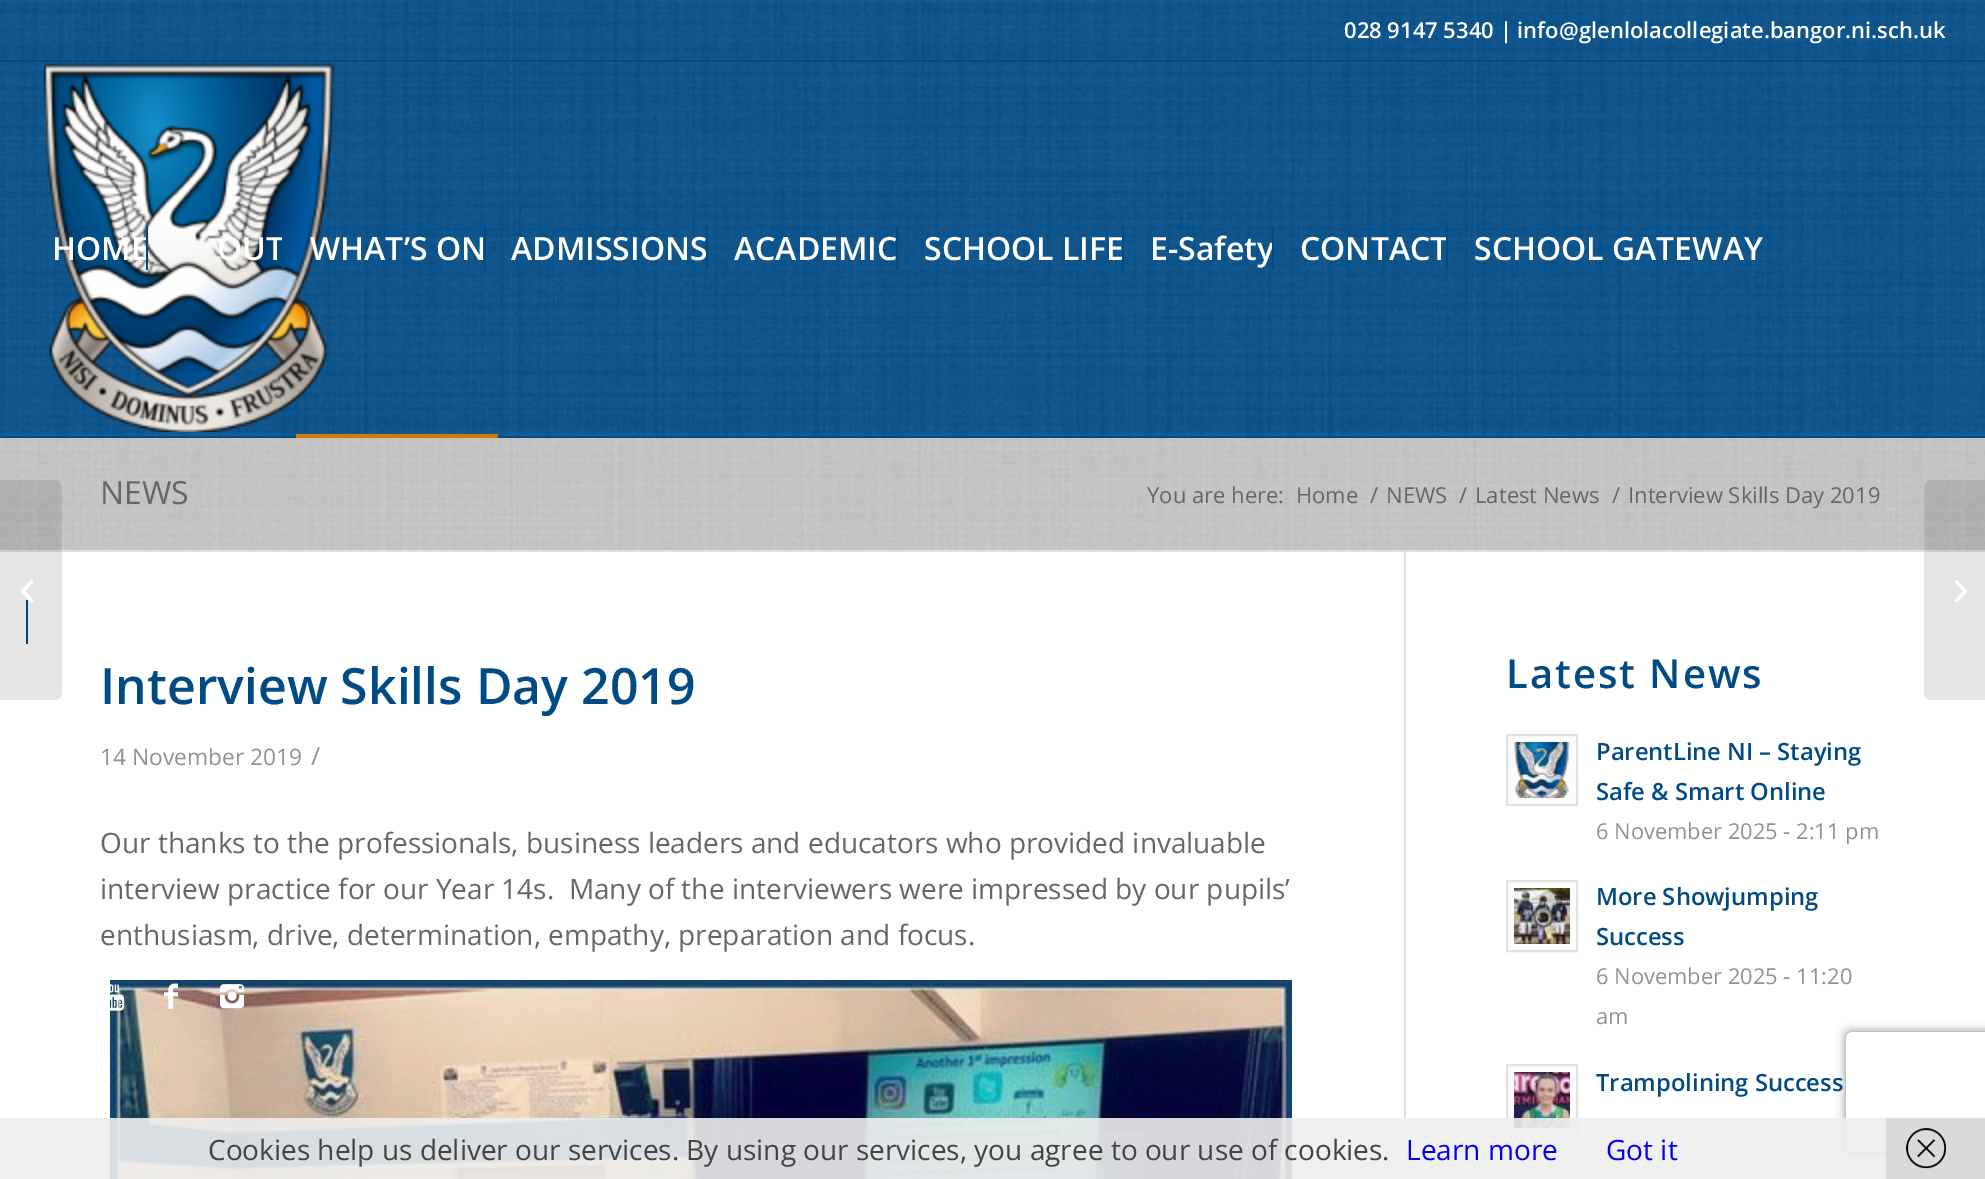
%!PS-Adobe-3.0
%%BoundingBox: 0 0 1985 1179
%%LanguageLevel: 3
%%Pages: 1
%%EndComments
%%BeginProlog
/setalpha { dup .setfillconstantalpha .setstrokeconstantalpha } def
/rrect { 5 dict begin { /r /h /w /y /x } { exch def } forall
  x r add y moveto x w add y 2 copy h add r arct x w add y h add x 1 index r arct
  x y h add x y r arct x y 2 copy exch w add exch r arct closepath end } def
/softshadow { 12 dict begin { /a /b /q /h /w /y /x } { exch def } forall gsave /was 0 def
  9 -2 -9 { dup b mul 4 div /e exch def 1 sub .425 mul 2.718 exch exp 1 add a .99 .min exch div /now exch def
    1 1 now sub 1 was sub div sub setalpha /was now def
    w h .min e 2 mul add 0 gt { x e sub y e sub w e 2 mul add h e 2 mul add
      q e add b .6 mul add w h .min 2 div e add .min 0 .max rrect fill } if } for grestore end } def
/drawimage { 5 dict begin { /h /w /y /x /name } { exch def } forall
  gsave x y translate w h scale
  w h 8 [w 0 0 h 0 0] name (r) file false 3 colorimage grestore end } def
%%EndProlog
%%BeginSetup
<< /PageSize [1985 1179] /PageUsesTransparency true >> setpagedevice
%%EndSetup
%%Page: 1 1
0 .pushpdf14devicefilter
0 1179 translate 1 -1 scale
4 setmiterlimit
0 0.294 0.522 setrgbcolor
0 0 1985 1179 rectfill
0.882 setgray
0 434 1985 2 rectfill
0.95 setalpha
0 0.294 0.522 setrgbcolor
0 434 1985 2 rectfill
1 setalpha
(images/1.raw) 0 0 1985 436 drawimage
0 60 1985 2 rectfill
(images/2.raw) 42 63 293 369 drawimage
0.812 0.486 0.059 setrgbcolor
296 434 202 4 rectfill
0 0.294 0.522 setrgbcolor
484 226 2 44 rectfill
1122 226 2 44 rectfill
1 setgray
0 552 1985 627 rectfill
0 0.294 0.522 setrgbcolor
26 600 2 44 rectfill
(images/8.raw) 110 980 1182 199 drawimage
(images/3.raw) 110 984 15 27 drawimage
(images/4.raw) 164 983 14 26 drawimage
(images/5.raw) 220 984 25 25 drawimage
0.8 setgray
0 438 1985 112 rectfill
(images/7.raw) 0 438 1985 112 drawimage
0.882 setgray
0 550 1985 2 rectfill
0.1 setalpha
0 setgray
newpath 0 480 moveto 54 480 lineto 58.5 480 62 483.5 62 488 curveto 62 692 lineto 62 696.5 58.5 700 54 700 curveto 0 700 lineto closepath fill
1 setalpha
(images/6.raw) 20 580 14 23 drawimage
0.882 setgray
1404 552 2 627 rectfill
0.988 setgray
newpath 1507 735 moveto 1577 735 lineto 1577 805 lineto 1507 805 lineto closepath gsave fill grestore
0.882 setgray
2 setlinewidth
stroke
(images/9.raw) 1514 742 56 56 drawimage
0.988 setgray
newpath 1507 881 moveto 1577 881 lineto 1577 951 lineto 1507 951 lineto closepath gsave fill grestore
0.882 setgray
stroke
(images/10.raw) 1514 888 56 56 drawimage
0.988 setgray
newpath 1507 1065 moveto 1577 1065 lineto 1577 1135 lineto 1507 1135 lineto closepath gsave fill grestore
0.882 setgray
stroke
(images/11.raw) 1514 1072 56 56 drawimage
0.1 setalpha
0 setgray
newpath 1932 480 moveto 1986 480 lineto 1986 700 lineto 1932 700 lineto 1927.5 700 1924 696.5 1924 692 curveto 1924 488 lineto 1924 483.5 1927.5 480 1932 480 curveto closepath fill
1 setalpha
(images/12.raw) 1954 580 14 23 drawimage
gsave
newpath 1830 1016 moveto 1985 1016 lineto 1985 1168 lineto 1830 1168 lineto closepath 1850 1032 moveto 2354 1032 lineto 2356 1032 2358 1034 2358 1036 curveto 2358 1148 lineto 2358 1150 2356 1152 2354 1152 curveto 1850 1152 lineto 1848 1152 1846 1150 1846 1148 curveto 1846 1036 lineto 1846 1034 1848 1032 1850 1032 curveto closepath eoclip newpath
0.502 setgray
1846 1032 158 120 4 5 1 softshadow
grestore
0.9 setalpha
0.933 setgray
0 1118 1985 61 rectfill
0.6 setalpha
0.8 setgray
1886 1118 99 61 rectfill
1 setalpha
(images/13.raw) 1906 1128 40 41 drawimage
/OpenSans-SemiBold [22 0 0 -22 0 0] selectfont
1 setgray
1344 38 moveto (028 9147 5340 | info@glenlolacollegiate.bangor.ni.sch.uk) show
/OpenSans-SemiBold [32 0 0 -32 0 0] selectfont
52 260 moveto (HOME) show
217 260 moveto (OUT) show
0 0.294 0.522 setrgbcolor
146 226 2 44 rectfill
1 setgray
310 260 moveto (WHAT’S ON) show
0 0.294 0.522 setrgbcolor
282 226 2 44 rectfill
1 setgray
511 260 moveto (ADMISSIONS) show
734 260 moveto (ACADEMIC) show
0 0.294 0.522 setrgbcolor
706 226 2 44 rectfill
1 setgray
924 260 moveto (SCHOOL LIFE) show
0 0.294 0.522 setrgbcolor
896 226 2 44 rectfill
1 setgray
1150 260 moveto (E-Safety) show
1300 260 moveto (CONTACT) show
0 0.294 0.522 setrgbcolor
1272 226 2 44 rectfill
1 setgray
1474 260 moveto (SCHOOL GATEWAY) show
0 0.294 0.522 setrgbcolor
1446 226 2 44 rectfill
/OpenSans-Regular [32 0 0 -32 0 0] selectfont
0.4 setgray
100 504 moveto (NEWS) show
/OpenSans-Regular [22 0 0 -22 0 0] selectfont
1147 503 moveto (You are here:) show
1296 503 moveto (Home) show
1370 503 moveto (/) show
1386 503 moveto (NEWS) show
1459 503 moveto (/) show
1475 503 moveto (Latest News) show
1612 503 moveto (/) show
1628 503 moveto (Interview Skills Day 2019) show
/OpenSans-SemiBold [50 0 0 -50 0 0] selectfont
0 0.294 0.522 setrgbcolor
100 704 moveto (Interview Skills Day 2019) show
/OpenSans-Regular [22.75 0 0 -22.75 0 0] selectfont
0.569 setgray
100 765 moveto (14 November 2019) show
/OpenSans-Regular [25 0 0 -25 0 0] selectfont
311 765 moveto (/) show
/OpenSans-Regular [28 0 0 -28 0 0] selectfont
0.4 setgray
100 853 moveto (Our thanks to the professionals, business leaders and educators who provided invaluable) show
100 899 moveto (interview practice for our Year 14s.  Many of the interviewers were impressed by our pupils’) show
100 945 moveto (enthusiasm, drive, determination, empathy, preparation and focus.) show
/OpenSans-SemiBold [40 0 0 -40 0 0] selectfont
0 0.294 0.522 setrgbcolor
1506 688 moveto 2 0 (Latest News) ashow
/OpenSans-SemiBold [23.75 0 0 -23.75 0 0] selectfont
1596 760 moveto (ParentLine NI – Staying) show
1596 800 moveto (Safe & Smart Online) show
/OpenSans-Regular [21.9 0 0 -21.9 0 0] selectfont
0.569 setgray
1596 839 moveto (6 November 2025 - 2:11 pm) show
/OpenSans-SemiBold [23.75 0 0 -23.75 0 0] selectfont
0 0.294 0.522 setrgbcolor
1596 905 moveto (More Showjumping) show
1596 945 moveto (Success) show
/OpenSans-Regular [21.9 0 0 -21.9 0 0] selectfont
0.569 setgray
1596 984 moveto (6 November 2025 - 11:20) show
1596 1024 moveto (am) show
/OpenSans-SemiBold [23.75 0 0 -23.75 0 0] selectfont
0 0.294 0.522 setrgbcolor
1596 1091 moveto (Trampolining Success) show
/OpenSans-Regular [28 0 0 -28 0 0] selectfont
0.267 setgray
208 1160 moveto (Cookies help us deliver our services. By using our services, you agree to our use of cookies.) show
0 0 0.933 setrgbcolor
1406 1160 moveto (Learn more) show
1606 1160 moveto (Got it) show
.poppdf14devicefilter showpage
%%EOF
